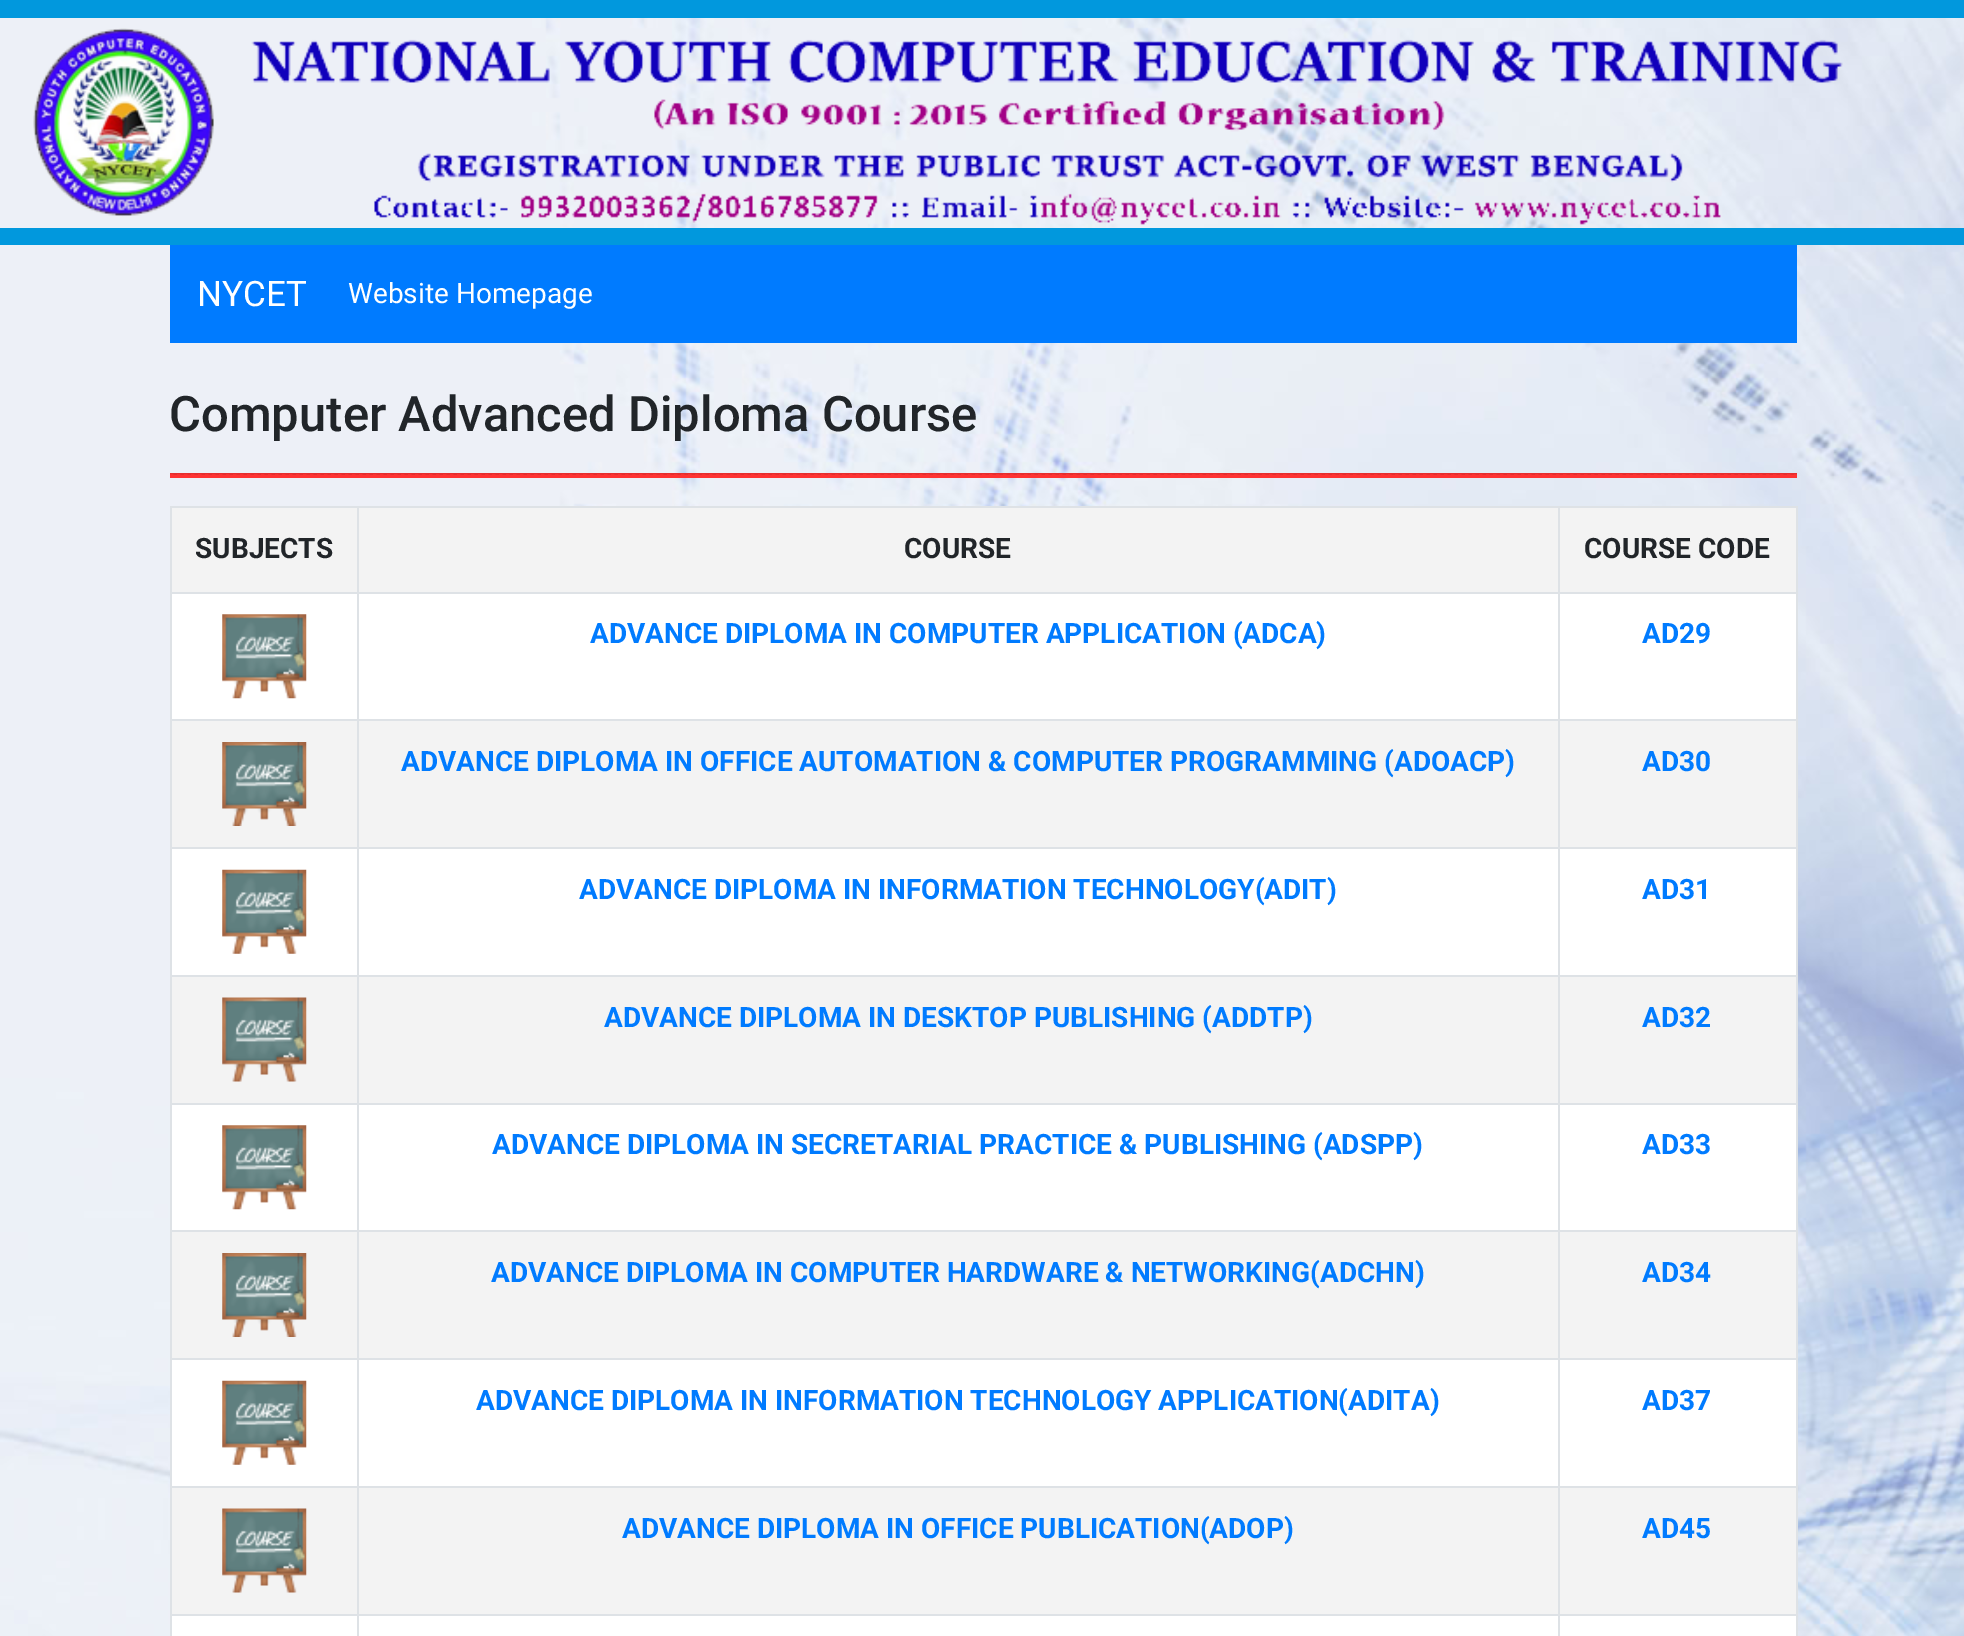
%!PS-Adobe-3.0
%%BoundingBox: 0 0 1964 1636
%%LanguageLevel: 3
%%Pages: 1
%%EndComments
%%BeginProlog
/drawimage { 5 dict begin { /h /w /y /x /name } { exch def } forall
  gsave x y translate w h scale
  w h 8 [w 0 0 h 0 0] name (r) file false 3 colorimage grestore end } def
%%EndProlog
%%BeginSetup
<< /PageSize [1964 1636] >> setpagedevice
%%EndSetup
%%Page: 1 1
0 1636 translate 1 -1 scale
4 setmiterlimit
1 setgray
0 0 1964 1636 rectfill
(images/1.raw) 0 18 1964 1618 drawimage
0.004 0.596 0.867 setrgbcolor
0 0 1964 18 rectfill
0 228 1964 17 rectfill
(images/2.raw) 33 28 1810 197 drawimage
0 0.482 1 setrgbcolor
170 245 1627 98 rectfill
1 0.2 0.2 setrgbcolor
170 475 1627 3 rectfill
0.902 0.18 0.18 setrgbcolor
170 473 1627 2 rectfill
1 0.2 0.2 setrgbcolor
3.5 setlinewidth
[3.5 3.5] 0 setdash
newpath 170 476 moveto 1797 476 lineto stroke
1 setgray
172 594 1624 1042 rectfill
0.871 0.886 0.902 setrgbcolor
170 506 1627 2 rectfill
1796 506 2 1130 rectfill
170 506 2 1130 rectfill
0.953 setgray
172 508 1624 84 rectfill
0.871 0.886 0.902 setrgbcolor
1558 592 239 2 rectfill
1558 719 239 2 rectfill
0.953 setgray
172 721 1624 126 rectfill
0.871 0.886 0.902 setrgbcolor
1558 847 239 2 rectfill
1558 975 239 2 rectfill
0.953 setgray
172 977 1624 126 rectfill
0.871 0.886 0.902 setrgbcolor
1558 1103 239 2 rectfill
1558 1230 239 2 rectfill
0.953 setgray
172 1232 1624 126 rectfill
0.871 0.886 0.902 setrgbcolor
1558 1358 239 2 rectfill
1558 1486 239 2 rectfill
0.953 setgray
172 1488 1624 126 rectfill
0.871 0.886 0.902 setrgbcolor
1558 1614 239 2 rectfill
1558 1614 2 22 rectfill
357 1614 1202 2 rectfill
1558 1486 2 129 rectfill
357 1486 1202 2 rectfill
1558 1358 2 130 rectfill
357 1358 1202 2 rectfill
1558 1230 2 130 rectfill
357 1230 1202 2 rectfill
1558 1103 2 129 rectfill
357 1103 1202 2 rectfill
1558 975 2 129 rectfill
357 975 1202 2 rectfill
1558 847 2 130 rectfill
357 847 1202 2 rectfill
1558 719 2 130 rectfill
357 719 1202 2 rectfill
1558 592 2 129 rectfill
357 592 1202 2 rectfill
357 1614 2 22 rectfill
170 1614 189 2 rectfill
357 1486 2 129 rectfill
170 1486 189 2 rectfill
357 1358 2 130 rectfill
170 1358 189 2 rectfill
357 1230 2 130 rectfill
170 1230 189 2 rectfill
357 1103 2 129 rectfill
170 1103 189 2 rectfill
357 975 2 129 rectfill
170 975 189 2 rectfill
357 847 2 130 rectfill
170 847 189 2 rectfill
357 719 2 130 rectfill
170 719 189 2 rectfill
357 592 2 129 rectfill
170 592 189 2 rectfill
357 506 2 87 rectfill
1558 506 2 87 rectfill
(images/3.raw) 222 614 85 85 drawimage
(images/4.raw) 222 742 85 84 drawimage
(images/5.raw) 222 869 85 85 drawimage
(images/6.raw) 222 997 85 85 drawimage
(images/3.raw) 222 1125 85 85 drawimage
(images/4.raw) 222 1253 85 84 drawimage
(images/5.raw) 222 1380 85 85 drawimage
(images/6.raw) 222 1508 85 85 drawimage
/Roboto-Regular [35 0 0 -35 0 0] selectfont
1 setgray
197 306 moveto (NYCET) show
/Roboto-Regular [28 0 0 -28 0 0] selectfont
348 303 moveto (Website Homepage) show
/Roboto-Medium [49 0 0 -49 0 0] selectfont
0.129 0.145 0.161 setrgbcolor
169 431 moveto (Computer Advanced Diploma Course) show
/Roboto-Bold [28 0 0 -28 0 0] selectfont
195 558 moveto (SUBJECTS) show
904 558 moveto (COURSE) show
1584 558 moveto (COURSE CODE) show
0 0.482 1 setrgbcolor
590 643 moveto (ADVANCE DIPLOMA IN COMPUTER APPLICATION \(ADCA\)) show
1642 643 moveto (AD29) show
401 771 moveto (ADVANCE DIPLOMA IN OFFICE AUTOMATION & COMPUTER PROGRAMMING \(ADOACP\)) show
1642 771 moveto (AD30) show
579 899 moveto (ADVANCE DIPLOMA IN INFORMATION TECHNOLOGY\(ADIT\)) show
1642 899 moveto (AD31) show
604 1027 moveto (ADVANCE DIPLOMA IN DESKTOP PUBLISHING \(ADDTP\)) show
1642 1027 moveto (AD32) show
492 1154 moveto (ADVANCE DIPLOMA IN SECRETARIAL PRACTICE & PUBLISHING \(ADSPP\)) show
1642 1154 moveto (AD33) show
491 1282 moveto (ADVANCE DIPLOMA IN COMPUTER HARDWARE & NETWORKING\(ADCHN\)) show
1642 1282 moveto (AD34) show
476 1410 moveto (ADVANCE DIPLOMA IN INFORMATION TECHNOLOGY APPLICATION\(ADITA\)) show
1642 1410 moveto (AD37) show
622 1538 moveto (ADVANCE DIPLOMA IN OFFICE PUBLICATION\(ADOP\)) show
1642 1538 moveto (AD45) show
showpage
%%EOF
